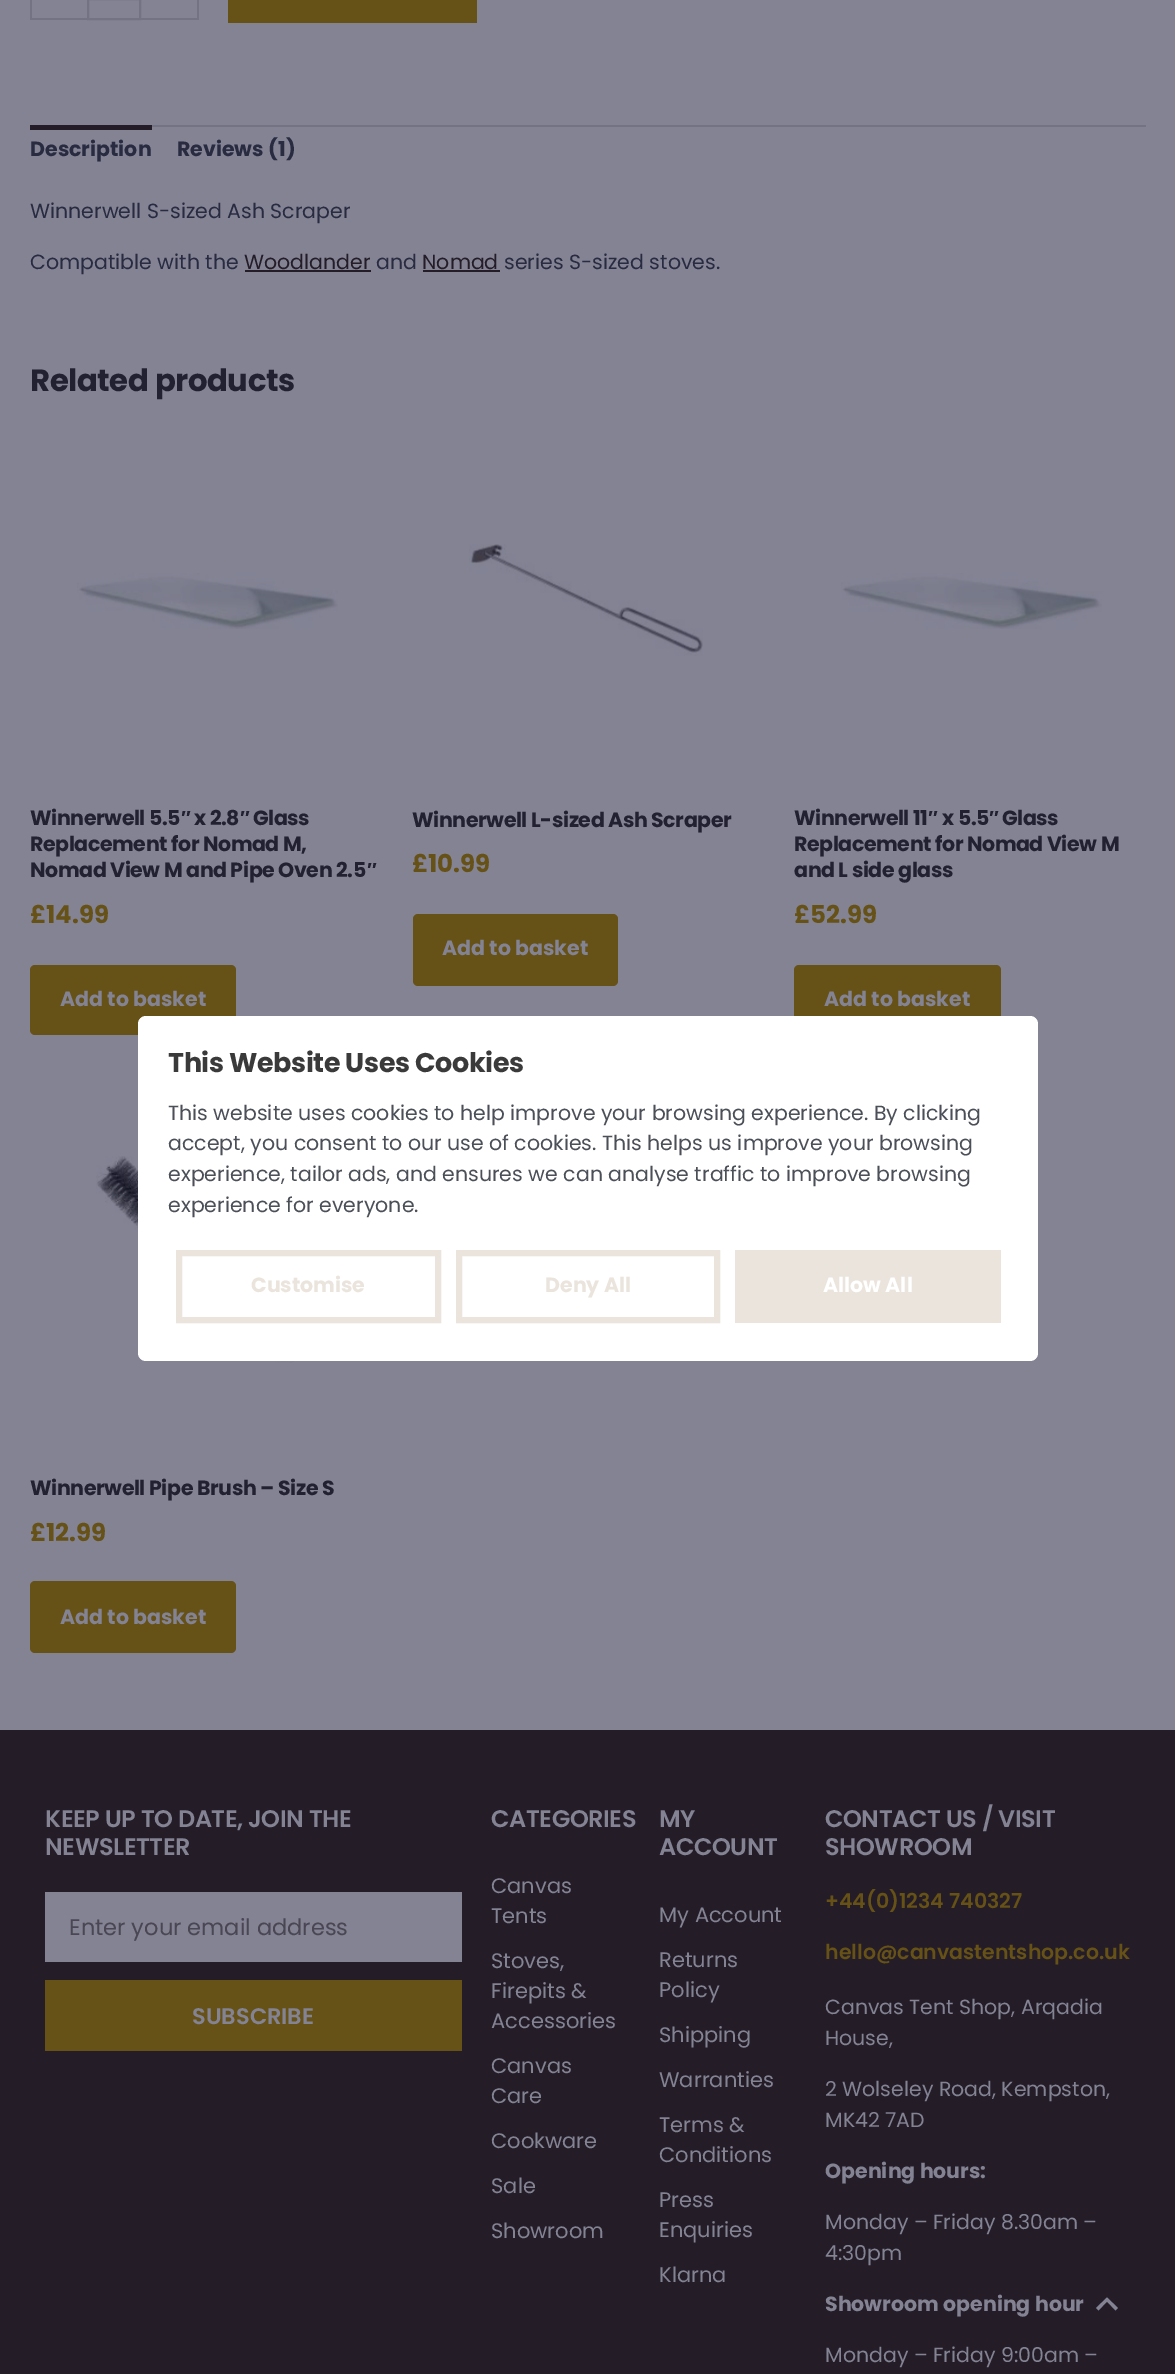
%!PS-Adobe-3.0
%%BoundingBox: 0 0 1175 2374
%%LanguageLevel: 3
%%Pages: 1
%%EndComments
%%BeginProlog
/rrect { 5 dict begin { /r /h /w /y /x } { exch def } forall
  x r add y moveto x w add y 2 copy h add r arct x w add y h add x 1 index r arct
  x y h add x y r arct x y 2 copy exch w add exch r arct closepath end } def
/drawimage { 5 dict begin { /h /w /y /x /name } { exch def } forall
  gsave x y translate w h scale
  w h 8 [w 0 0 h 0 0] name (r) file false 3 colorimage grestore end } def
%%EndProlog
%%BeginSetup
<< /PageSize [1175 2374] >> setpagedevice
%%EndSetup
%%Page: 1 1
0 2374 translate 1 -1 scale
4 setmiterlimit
0.514 0.514 0.58 setrgbcolor
0 0 1175 2374 rectfill
0.451 0.451 0.518 setrgbcolor
30 18 57 2 rectfill
30 0 2 20 rectfill
2 setlinewidth
88 -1 52 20 rectstroke
197 0 2 20 rectfill
141 18 57 2 rectfill
0.4 0.318 0.09 setrgbcolor
228 0 249 23 rectfill
0.451 0.451 0.518 setrgbcolor
152 125 994 2 rectfill
0.141 0.114 0.153 setrgbcolor
30 125 122 5 rectfill
245 270 126 2 rectfill
423 270 77 2 rectfill
(images/1.raw) 77 573 261 56 drawimage
0.4 0.318 0.09 setrgbcolor
30 965 206 70 5 rrect fill
(images/2.raw) 469 544 234 112 drawimage
413 914 205 72 5 rrect fill
(images/3.raw) 841 573 261 56 drawimage
794 965 207 70 5 rrect fill
(images/4.raw) 96 1156 205 207 drawimage
30 1581 206 72 5 rrect fill
0.141 0.114 0.153 setrgbcolor
0 1730 1175 644 rectfill
0.514 0.514 0.58 setrgbcolor
45 1892 417 70 rectfill
0.4 0.318 0.09 setrgbcolor
45 1980 417 71 rectfill
1 setgray
138 1016 900 345 8 rrect fill
0.918 0.894 0.867 setrgbcolor
6 setlinewidth
179 1253 259 67 rectstroke
459 1253 258 67 rectstroke
735 1250 266 73 rectfill
0.514 0.514 0.58 setrgbcolor
newpath 1118 2308 moveto 1107 2297.5 lineto 1096 2308 lineto 1098.5 2310.5 lineto 1107 2301.5 lineto 1115.5 2310.5 lineto closepath fill
/Poppins-Bold [20.5 0 0 -20.5 0 0] selectfont
0.161 0.169 0.255 setrgbcolor
30 156 moveto (Description) show
177 156 moveto (Reviews \(1\)) show
/Poppins-Regular [20.5 0 0 -20.5 0 0] selectfont
30 218 moveto (Winnerwell S-sized Ash Scraper) show
30 269 moveto (Compatible with the) show
0.141 0.114 0.153 setrgbcolor
244 269 moveto (Woodlander) show
0.161 0.169 0.255 setrgbcolor
376 269 moveto (and) show
0.141 0.114 0.153 setrgbcolor
422 269 moveto (Nomad) show
0.161 0.169 0.255 setrgbcolor
504 269 moveto (series S-sized stoves.) show
/Poppins-Bold [30.75 0 0 -30.75 0 0] selectfont
0.129 0.129 0.196 setrgbcolor
30 391 moveto -0.4 0 (Related products) ashow
/Poppins-Bold [20.5 0 0 -20.5 0 0] selectfont
30 825 moveto -0.4 0 (Winnerwell 5.5) ashow
/LiberationSans-Bold [20.5 0 0 -20.5 0 0] selectfont
181 825 moveto -0.4 0 (″) ashow
/Poppins-Bold [20.5 0 0 -20.5 0 0] selectfont
194 825 moveto -0.4 0 (x 2.8) ashow
/LiberationSans-Bold [20.5 0 0 -20.5 0 0] selectfont
240 825 moveto -0.4 0 (″) ashow
/Poppins-Bold [20.5 0 0 -20.5 0 0] selectfont
253 825 moveto -0.4 0 (Glass) ashow
30 851 moveto -0.4 0 (Replacement for Nomad M,) ashow
30 877 moveto -0.4 0 (Nomad View M and Pipe Oven 2.5) ashow
/LiberationSans-Bold [20.5 0 0 -20.5 0 0] selectfont
367 877 moveto -0.4 0 (″) ashow
/Poppins-Bold [24.5 0 0 -24.5 0 0] selectfont
0.4 0.318 0.09 setrgbcolor
30 923 moveto (£14.99) show
/Poppins-Bold [20.5 0 0 -20.5 0 0] selectfont
0.514 0.514 0.58 setrgbcolor
60 1006 moveto (Add to basket) show
0.129 0.129 0.196 setrgbcolor
412 827 moveto -0.4 0 (Winnerwell L-sized Ash Scraper) ashow
/Poppins-Bold [24.5 0 0 -24.5 0 0] selectfont
0.4 0.318 0.09 setrgbcolor
412 872 moveto (£10.99) show
/Poppins-Bold [20.5 0 0 -20.5 0 0] selectfont
0.514 0.514 0.58 setrgbcolor
442 955 moveto (Add to basket) show
0.129 0.129 0.196 setrgbcolor
794 825 moveto -0.4 0 (Winnerwell 11) ashow
/LiberationSans-Bold [20.5 0 0 -20.5 0 0] selectfont
928 825 moveto -0.4 0 (″) ashow
/Poppins-Bold [20.5 0 0 -20.5 0 0] selectfont
942 825 moveto -0.4 0 (x 5.5) ashow
/LiberationSans-Bold [20.5 0 0 -20.5 0 0] selectfont
989 825 moveto -0.4 0 (″) ashow
/Poppins-Bold [20.5 0 0 -20.5 0 0] selectfont
1002 825 moveto -0.4 0 (Glass) ashow
794 851 moveto -0.4 0 (Replacement for Nomad View M) ashow
794 877 moveto -0.4 0 (and L side glass) ashow
/Poppins-Bold [24.5 0 0 -24.5 0 0] selectfont
0.4 0.318 0.09 setrgbcolor
794 923 moveto (£52.99) show
/Poppins-Bold [20.5 0 0 -20.5 0 0] selectfont
0.514 0.514 0.58 setrgbcolor
824 1006 moveto (Add to basket) show
0.129 0.129 0.196 setrgbcolor
30 1495 moveto -0.4 0 (Winnerwell Pipe Brush – Size S) ashow
/Poppins-Bold [24.5 0 0 -24.5 0 0] selectfont
0.4 0.318 0.09 setrgbcolor
30 1541 moveto (£12.99) show
/Poppins-Bold [20.5 0 0 -20.5 0 0] selectfont
0.514 0.514 0.58 setrgbcolor
60 1624 moveto (Add to basket) show
/Poppins-SemiBold [24 0 0 -24 0 0] selectfont
45 1827 moveto -0.4 0 (KEEP UP TO DATE, JOIN THE) ashow
45 1855 moveto -0.4 0 (NEWSLETTER) ashow
/Poppins-Regular [22.5 0 0 -22.5 0 0] selectfont
0.29 0.275 0.325 setrgbcolor
69 1935 moveto (Enter your email address) show
/Poppins-SemiBold [22.5 0 0 -22.5 0 0] selectfont
0.514 0.514 0.58 setrgbcolor
192 2024 moveto (SUBSCRIBE) show
/Poppins-SemiBold [24 0 0 -24 0 0] selectfont
491 1827 moveto -0.4 0 (CATEGORIES) ashow
/Poppins-Regular [21 0 0 -21 0 0] selectfont
491 1893 moveto (Canvas) show
491 1923 moveto (Tents) show
491 1968 moveto (Stoves,) show
491 1998 moveto (Firepits &) show
491 2028 moveto (Accessories) show
491 2073 moveto (Canvas) show
491 2103 moveto (Care) show
491 2148 moveto (Cookware) show
491 2193 moveto (Sale) show
491 2238 moveto (Showroom) show
/Poppins-SemiBold [24 0 0 -24 0 0] selectfont
659 1827 moveto -0.4 0 (MY) ashow
659 1855 moveto -0.4 0 (ACCOUNT) ashow
/Poppins-Regular [21 0 0 -21 0 0] selectfont
659 1922 moveto (My Account) show
659 1967 moveto (Returns) show
659 1997 moveto (Policy) show
659 2042 moveto (Shipping) show
659 2087 moveto (Warranties) show
659 2132 moveto (Terms &) show
659 2162 moveto (Conditions) show
659 2207 moveto (Press) show
659 2237 moveto (Enquiries) show
659 2282 moveto (Klarna) show
/Poppins-SemiBold [24 0 0 -24 0 0] selectfont
825 1827 moveto -0.4 0 (CONTACT US / VISIT) ashow
825 1855 moveto -0.4 0 (SHOWROOM) ashow
/Poppins-SemiBold [20.5 0 0 -20.5 0 0] selectfont
0.4 0.318 0.09 setrgbcolor
825 1908 moveto (+44\(0\)1234 740327) show
825 1959 moveto (hello@canvastentshop.co.uk) show
/Poppins-Regular [20.5 0 0 -20.5 0 0] selectfont
0.514 0.514 0.58 setrgbcolor
825 2014 moveto (Canvas Tent Shop, Arqadia) show
825 2045 moveto (House,) show
825 2096 moveto (2 Wolseley Road, Kempston,) show
825 2127 moveto (MK42 7AD) show
/Poppins-Bold [20.5 0 0 -20.5 0 0] selectfont
825 2178 moveto (Opening hours:) show
/Poppins-Regular [20.5 0 0 -20.5 0 0] selectfont
825 2229 moveto (Monday – Friday 8.30am –) show
825 2260 moveto (4:30pm) show
/Poppins-Bold [20.5 0 0 -20.5 0 0] selectfont
825 2311 moveto (Showroom opening hour) show
/Poppins-Regular [20.5 0 0 -20.5 0 0] selectfont
825 2362 moveto (Monday – Friday 9:00am –) show
/Poppins-Bold [27 0 0 -27 0 0] selectfont
0.227 setgray
168 1072 moveto -0.4 0 (This Website Uses Cookies) ashow
/Poppins-Regular [20.5 0 0 -20.5 0 0] selectfont
0.294 0.31 0.345 setrgbcolor
168 1120 moveto (This website uses cookies to help improve your browsing experience. By clicking) show
168 1150 moveto (accept, you consent to our use of cookies. This helps us improve your browsing) show
168 1181 moveto (experience, tailor ads, and ensures we can analyse traffic to improve browsing) show
168 1212 moveto (experience for everyone.) show
/Poppins-Bold [20.5 0 0 -20.5 0 0] selectfont
0.918 0.894 0.867 setrgbcolor
251 1292 moveto (Customise) show
545 1292 moveto (Deny All) show
1 setgray
823 1292 moveto (Allow All) show
showpage
%%EOF
